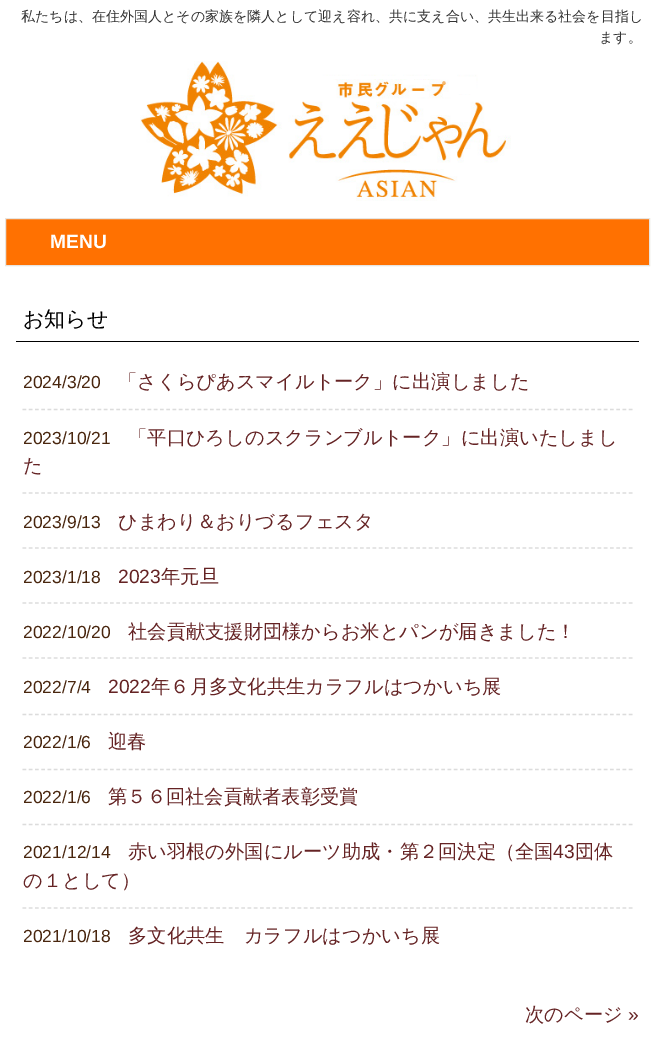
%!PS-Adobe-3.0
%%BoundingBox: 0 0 655 1048
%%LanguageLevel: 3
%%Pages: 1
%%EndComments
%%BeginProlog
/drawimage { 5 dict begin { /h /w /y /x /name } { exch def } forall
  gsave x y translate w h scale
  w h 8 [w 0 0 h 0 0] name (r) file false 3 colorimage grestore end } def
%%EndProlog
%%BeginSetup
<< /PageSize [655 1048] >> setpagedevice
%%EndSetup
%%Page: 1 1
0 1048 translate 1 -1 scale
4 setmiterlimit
1 setgray
0 0 655 1048 rectfill
(images/1.raw) 140 61 371 140 drawimage
1 0.443 0.004 setrgbcolor
newpath 5.5 218.5 moveto 649.5 218.5 lineto 649.5 265.5 lineto 5.5 265.5 lineto closepath gsave fill grestore
0.91 0.898 0.878 setrgbcolor
stroke
0 setgray
16 341 623 1 rectfill
0.863 setgray
1.2 setlinewidth
[3.75 2.5] 0 setdash
newpath 22.5 409.5 moveto 632.5 409.5 lineto stroke
newpath 22.5 493 moveto 632.5 493 lineto stroke
newpath 22.5 548 moveto 632.5 548 lineto stroke
newpath 22.5 603 moveto 632.5 603 lineto stroke
newpath 22.5 658 moveto 632.5 658 lineto stroke
newpath 22.5 714.5 moveto 632.5 714.5 lineto stroke
newpath 22.5 769.5 moveto 632.5 769.5 lineto stroke
newpath 22.5 824.5 moveto 632.5 824.5 lineto stroke
newpath 22.5 908 moveto 632.5 908 lineto stroke
/WenQuanYiZenHei-Medium [14 0 0 -14 0 0] selectfont
0.2 setgray
21 21 moveto (私たちは、在住外国人とその家族を隣人として迎え容れ、共に支え合い、共生出来る社会を目指し) show
599 42 moveto (ます。) show
/LiberationSans-Bold [19.25 0 0 -19.25 0 0] selectfont
1 setgray
50 248 moveto (MENU) show
/WenQuanYiZenHei-Medium [21 0 0 -21 0 0] selectfont
0 setgray
23 326 moveto (お知らせ) show
/LiberationSans-Regular [17.5 0 0 -17.5 0 0] selectfont
0.286 0.149 0.055 setrgbcolor
23 388 moveto (2024/3/20) show
/WenQuanYiZenHei-Medium [19.25 0 0 -19.25 0 0] selectfont
0.396 0.137 0.141 setrgbcolor
118 388 moveto (「さくらぴあスマイルトーク」に出演しました) show
/LiberationSans-Regular [17.5 0 0 -17.5 0 0] selectfont
0.286 0.149 0.055 setrgbcolor
23 444 moveto (2023/10/21) show
/WenQuanYiZenHei-Medium [19.25 0 0 -19.25 0 0] selectfont
0.396 0.137 0.141 setrgbcolor
128 444 moveto (「平口ひろしのスクランブルトーク」に出演いたしまし) show
23 472 moveto (た) show
/LiberationSans-Regular [17.5 0 0 -17.5 0 0] selectfont
0.286 0.149 0.055 setrgbcolor
23 528 moveto (2023/9/13) show
/WenQuanYiZenHei-Medium [19.25 0 0 -19.25 0 0] selectfont
0.396 0.137 0.141 setrgbcolor
118 528 moveto (ひまわり＆おりづるフェスタ) show
/LiberationSans-Regular [17.5 0 0 -17.5 0 0] selectfont
0.286 0.149 0.055 setrgbcolor
23 583 moveto (2023/1/18) show
/LiberationSans-Regular [19.25 0 0 -19.25 0 0] selectfont
0.396 0.137 0.141 setrgbcolor
118 583 moveto (2023) show
/WenQuanYiZenHei-Medium [19.25 0 0 -19.25 0 0] selectfont
161 583 moveto (年元旦) show
/LiberationSans-Regular [17.5 0 0 -17.5 0 0] selectfont
0.286 0.149 0.055 setrgbcolor
23 638 moveto (2022/10/20) show
/WenQuanYiZenHei-Medium [19.25 0 0 -19.25 0 0] selectfont
0.396 0.137 0.141 setrgbcolor
128 638 moveto (社会貢献支援財団様からお米とパンが届きました！) show
/LiberationSans-Regular [17.5 0 0 -17.5 0 0] selectfont
0.286 0.149 0.055 setrgbcolor
23 693 moveto (2022/7/4) show
/LiberationSans-Regular [19.25 0 0 -19.25 0 0] selectfont
0.396 0.137 0.141 setrgbcolor
108 693 moveto (2022) show
/WenQuanYiZenHei-Medium [19.25 0 0 -19.25 0 0] selectfont
151 693 moveto (年６月多文化共生カラフルはつかいち展) show
/LiberationSans-Regular [17.5 0 0 -17.5 0 0] selectfont
0.286 0.149 0.055 setrgbcolor
23 748 moveto (2022/1/6) show
/WenQuanYiZenHei-Medium [19.25 0 0 -19.25 0 0] selectfont
0.396 0.137 0.141 setrgbcolor
108 748 moveto (迎春) show
/LiberationSans-Regular [17.5 0 0 -17.5 0 0] selectfont
0.286 0.149 0.055 setrgbcolor
23 803 moveto (2022/1/6) show
/WenQuanYiZenHei-Medium [19.25 0 0 -19.25 0 0] selectfont
0.396 0.137 0.141 setrgbcolor
108 803 moveto (第５６回社会貢献者表彰受賞) show
/LiberationSans-Regular [17.5 0 0 -17.5 0 0] selectfont
0.286 0.149 0.055 setrgbcolor
23 858 moveto (2021/12/14) show
/WenQuanYiZenHei-Medium [19.25 0 0 -19.25 0 0] selectfont
0.396 0.137 0.141 setrgbcolor
128 858 moveto (赤い羽根の外国にルーツ助成・第２回決定（全国) show
/LiberationSans-Regular [19.25 0 0 -19.25 0 0] selectfont
553 858 moveto (43) show
/WenQuanYiZenHei-Medium [19.25 0 0 -19.25 0 0] selectfont
575 858 moveto (団体) show
23 887 moveto (の１として）) show
/LiberationSans-Regular [17.5 0 0 -17.5 0 0] selectfont
0.286 0.149 0.055 setrgbcolor
23 942 moveto (2021/10/18) show
/WenQuanYiZenHei-Medium [19.25 0 0 -19.25 0 0] selectfont
0.396 0.137 0.141 setrgbcolor
128 942 moveto (多文化共生　カラフルはつかいち展) show
525 1021 moveto (次のページ) show
/LiberationSans-Regular [19.25 0 0 -19.25 0 0] selectfont
628 1021 moveto (») show
showpage
%%EOF
